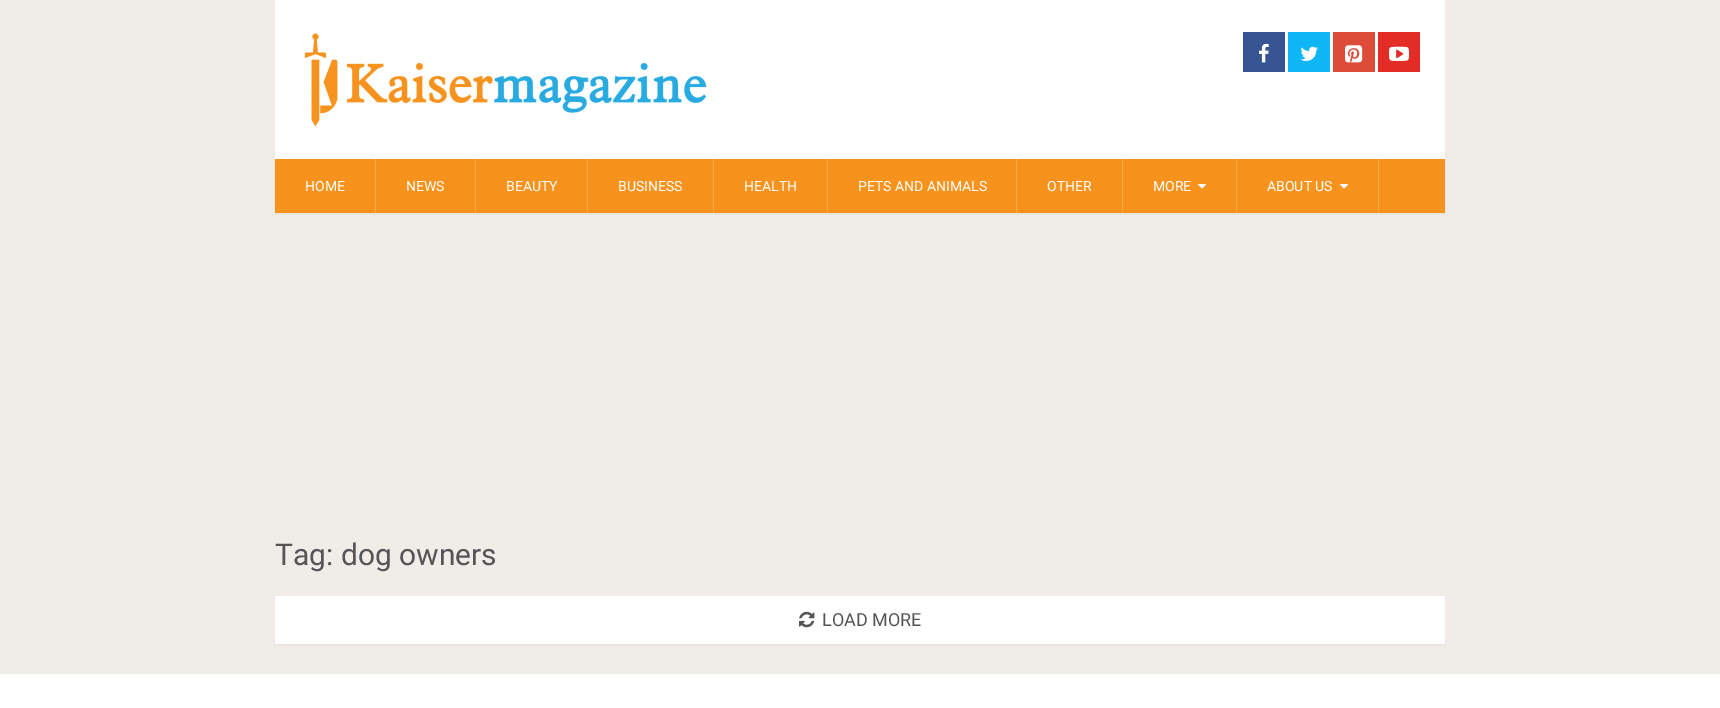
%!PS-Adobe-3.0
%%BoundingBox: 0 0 1720 708
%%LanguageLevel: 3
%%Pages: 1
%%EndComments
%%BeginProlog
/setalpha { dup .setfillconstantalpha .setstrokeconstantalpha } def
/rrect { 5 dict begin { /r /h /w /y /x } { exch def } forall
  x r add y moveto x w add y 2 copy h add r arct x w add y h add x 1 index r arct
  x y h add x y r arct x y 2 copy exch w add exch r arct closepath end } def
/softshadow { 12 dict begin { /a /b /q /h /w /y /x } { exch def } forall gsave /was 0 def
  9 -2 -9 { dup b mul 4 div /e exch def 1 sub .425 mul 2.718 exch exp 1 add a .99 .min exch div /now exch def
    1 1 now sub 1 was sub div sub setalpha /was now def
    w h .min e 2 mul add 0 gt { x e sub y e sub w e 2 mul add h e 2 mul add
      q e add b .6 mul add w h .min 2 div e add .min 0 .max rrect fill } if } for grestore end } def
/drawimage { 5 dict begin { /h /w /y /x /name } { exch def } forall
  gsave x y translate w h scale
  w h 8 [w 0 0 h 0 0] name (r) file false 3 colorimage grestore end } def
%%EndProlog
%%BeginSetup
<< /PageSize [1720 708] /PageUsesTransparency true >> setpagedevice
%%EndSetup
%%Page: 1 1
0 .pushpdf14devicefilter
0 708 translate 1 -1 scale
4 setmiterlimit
0.941 0.929 0.914 setrgbcolor
0 0 1720 708 rectfill
0 setgray
275 1 1170 213 0 1 0.05 softshadow
1 setgray
275 0 1170 159 rectfill
(images/1.raw) 304 33 403 94 drawimage
0.216 0.333 0.576 setrgbcolor
1243 32 42 40 rectfill
(images/2.raw) 1259 43 10 20 drawimage
0.055 0.714 0.965 setrgbcolor
1288 32 42 40 rectfill
(images/3.raw) 1300 46 18 15 drawimage
0.867 0.294 0.224 setrgbcolor
1333 32 42 40 rectfill
(images/4.raw) 1345 45 18 18 drawimage
0.89 0.173 0.149 setrgbcolor
1378 32 42 40 rectfill
(images/5.raw) 1389 46 20 15 drawimage
0.969 0.576 0.114 setrgbcolor
275 159 1170 54 rectfill
0.976 0.671 0.31 setrgbcolor
375 159 1 54 rectfill
475 159 1 54 rectfill
587 159 1 54 rectfill
713 159 1 54 rectfill
827 159 1 54 rectfill
1016 159 1 54 rectfill
1122 159 1 54 rectfill
1236 159 1 54 rectfill
(images/6.raw) 1198 184 8 5 drawimage
1378 159 1 54 rectfill
(images/6.raw) 1340 184 8 5 drawimage
0 setgray
275 597 1170 48 0 1 0.05 softshadow
1 setgray
275 596 1170 48 rectfill
(images/7.raw) 799 611 16 17 drawimage
0 674 1720 34 rectfill
/Roboto-Regular [14 0 0 -14 0 0] selectfont
305 191 moveto (HOME) show
406 191 moveto (NEWS) show
506 191 moveto (BEAUTY) show
618 191 moveto (BUSINESS) show
744 191 moveto (HEALTH) show
858 191 moveto (PETS AND ANIMALS) show
1047 191 moveto (OTHER) show
1153 191 moveto (MORE) show
1267 191 moveto (ABOUT US) show
/Roboto-Regular [30 0 0 -30 0 0] selectfont
0.333 setgray
275 565 moveto (Tag: dog owners) show
/Roboto-Regular [18 0 0 -18 0 0] selectfont
822 626 moveto (LOAD MORE) show
.poppdf14devicefilter showpage
%%EOF
